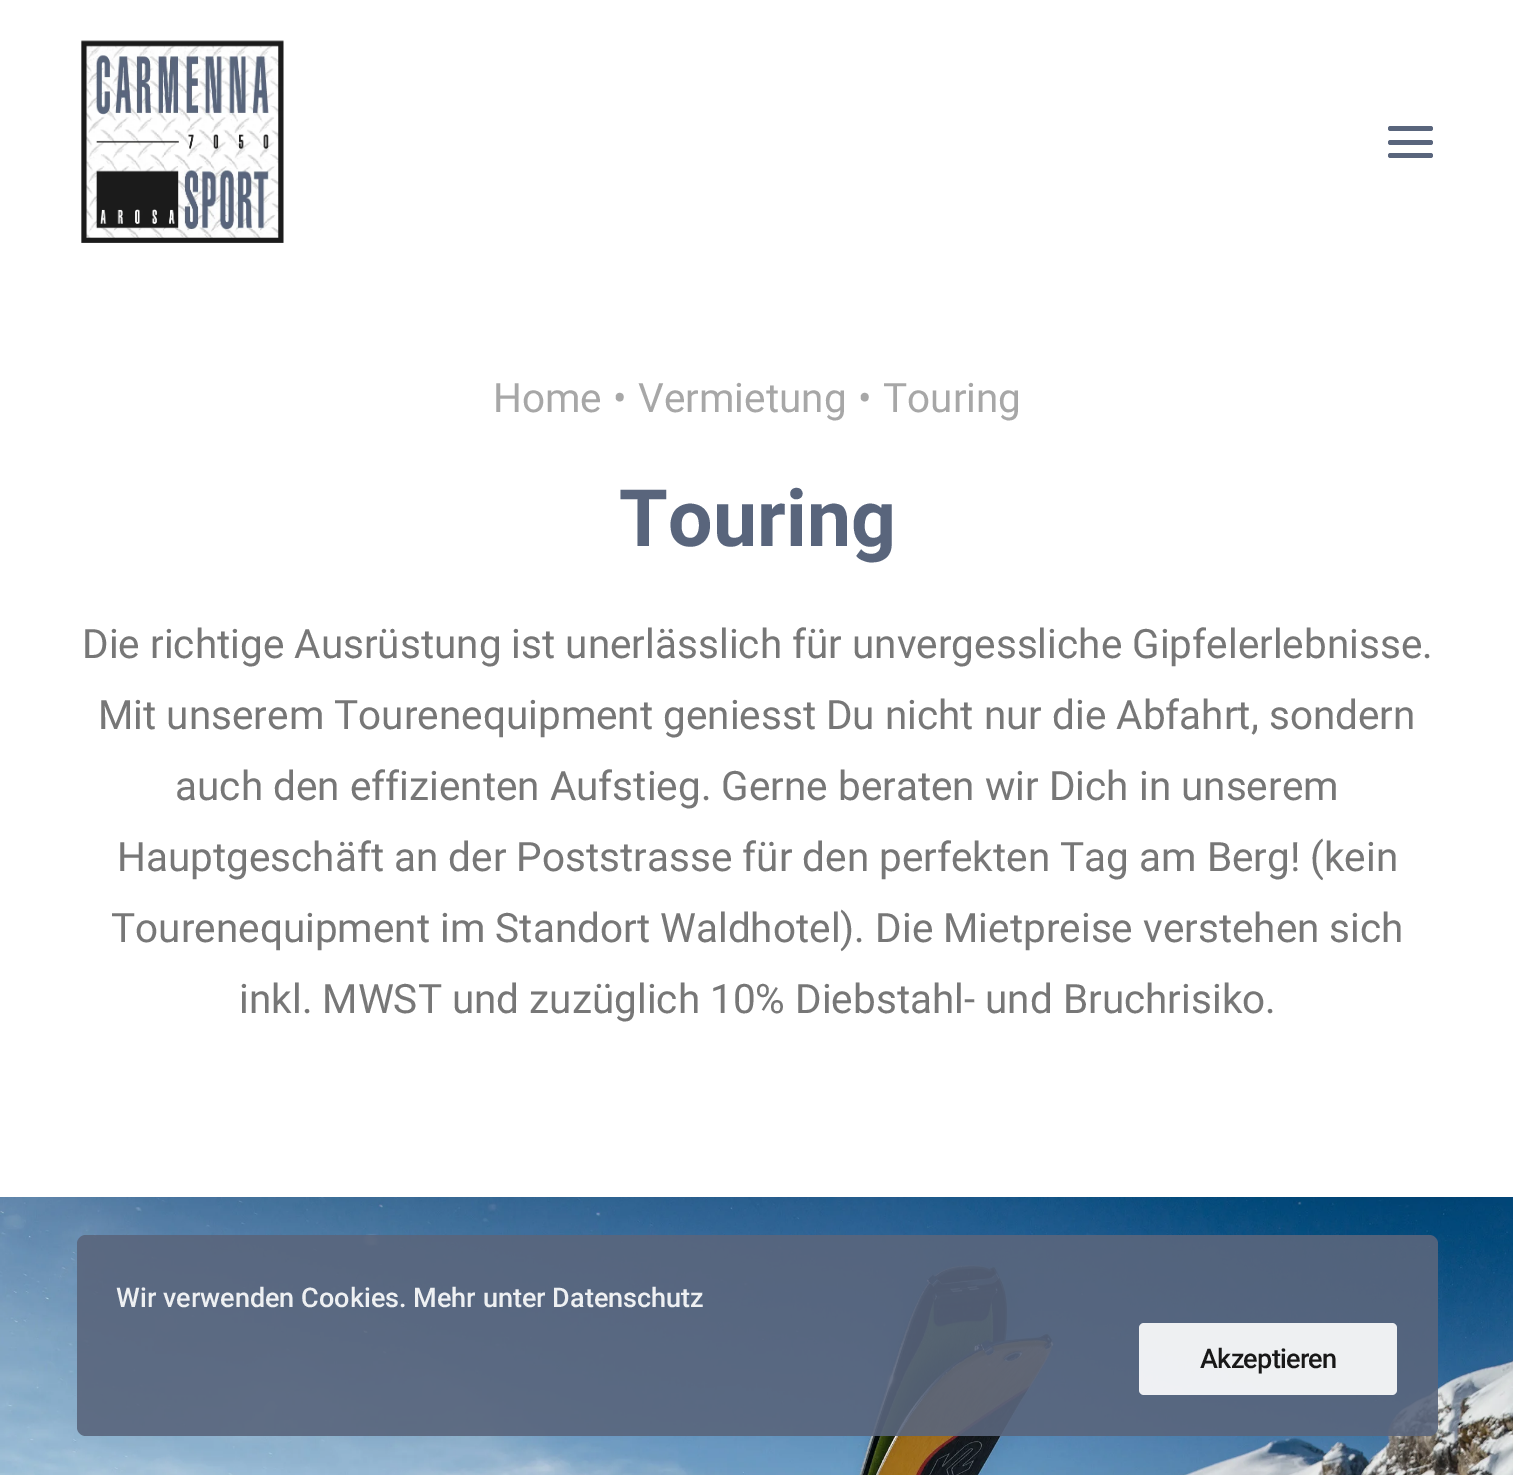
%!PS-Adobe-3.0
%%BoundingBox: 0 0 1513 1475
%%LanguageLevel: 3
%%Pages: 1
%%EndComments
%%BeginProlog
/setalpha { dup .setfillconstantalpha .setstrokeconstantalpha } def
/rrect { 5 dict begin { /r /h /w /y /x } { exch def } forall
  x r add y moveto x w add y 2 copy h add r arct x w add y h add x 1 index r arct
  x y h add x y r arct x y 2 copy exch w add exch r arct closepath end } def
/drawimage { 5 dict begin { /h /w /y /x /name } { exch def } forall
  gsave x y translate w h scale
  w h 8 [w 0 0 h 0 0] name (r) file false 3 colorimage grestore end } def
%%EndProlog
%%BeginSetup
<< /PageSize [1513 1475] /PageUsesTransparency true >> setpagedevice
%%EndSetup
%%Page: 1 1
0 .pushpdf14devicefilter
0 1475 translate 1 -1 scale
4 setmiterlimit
1 setgray
0 0 1513 1475 rectfill
(images/1.raw) 81 40 203 203 drawimage
0.349 0.396 0.486 setrgbcolor
1388 140 45 5 2.5 rrect fill
1388 126 45 5 2.5 rrect fill
1388 153 45 5 2.5 rrect fill
(images/2.raw) 0 1197 1513 278 drawimage
0.9 setalpha
77 1235 1361 201 9 rrect fill
1 setgray
1139 1323 258 72 5 rrect fill
/Roboto-Regular [40.5 0 0 -40.5 0 0] selectfont
1 setalpha
0.655 setgray
493 412 moveto (Home) show
613 412 moveto (•) show
638 412 moveto (Vermietung) show
858 412 moveto (•) show
883 412 moveto (Touring) show
/Roboto-Bold [79 0 0 -79 0 0] selectfont
0.349 0.396 0.486 setrgbcolor
619 546 moveto (Touring) show
/Roboto-Regular [40.5 0 0 -40.5 0 0] selectfont
0.467 setgray
82 658 moveto (Die richtige Ausrüstung ist unerlässlich für unvergessliche Gipfelerlebnisse.) show
98 729 moveto (Mit unserem Tourenequipment geniesst Du nicht nur die Abfahrt, sondern) show
175 800 moveto (auch den effizienten Aufstieg. Gerne beraten wir Dich in unserem) show
117 871 moveto (Hauptgeschäft an der Poststrasse für den perfekten Tag am Berg! \(kein) show
111 942 moveto (Tourenequipment im Standort Waldhotel\). Die Mietpreise verstehen sich) show
239 1013 moveto (inkl. MWST und zuzüglich 10% Diebstahl- und Bruchrisiko.) show
/Roboto-Medium [27 0 0 -27 0 0] selectfont
0.933 0.941 0.949 setrgbcolor
116 1307 moveto (Wir verwenden Cookies. Mehr unter Datenschutz) show
0.094 setgray
1200 1368 moveto -0.75 0 (Akzeptieren) ashow
.poppdf14devicefilter showpage
%%EOF
